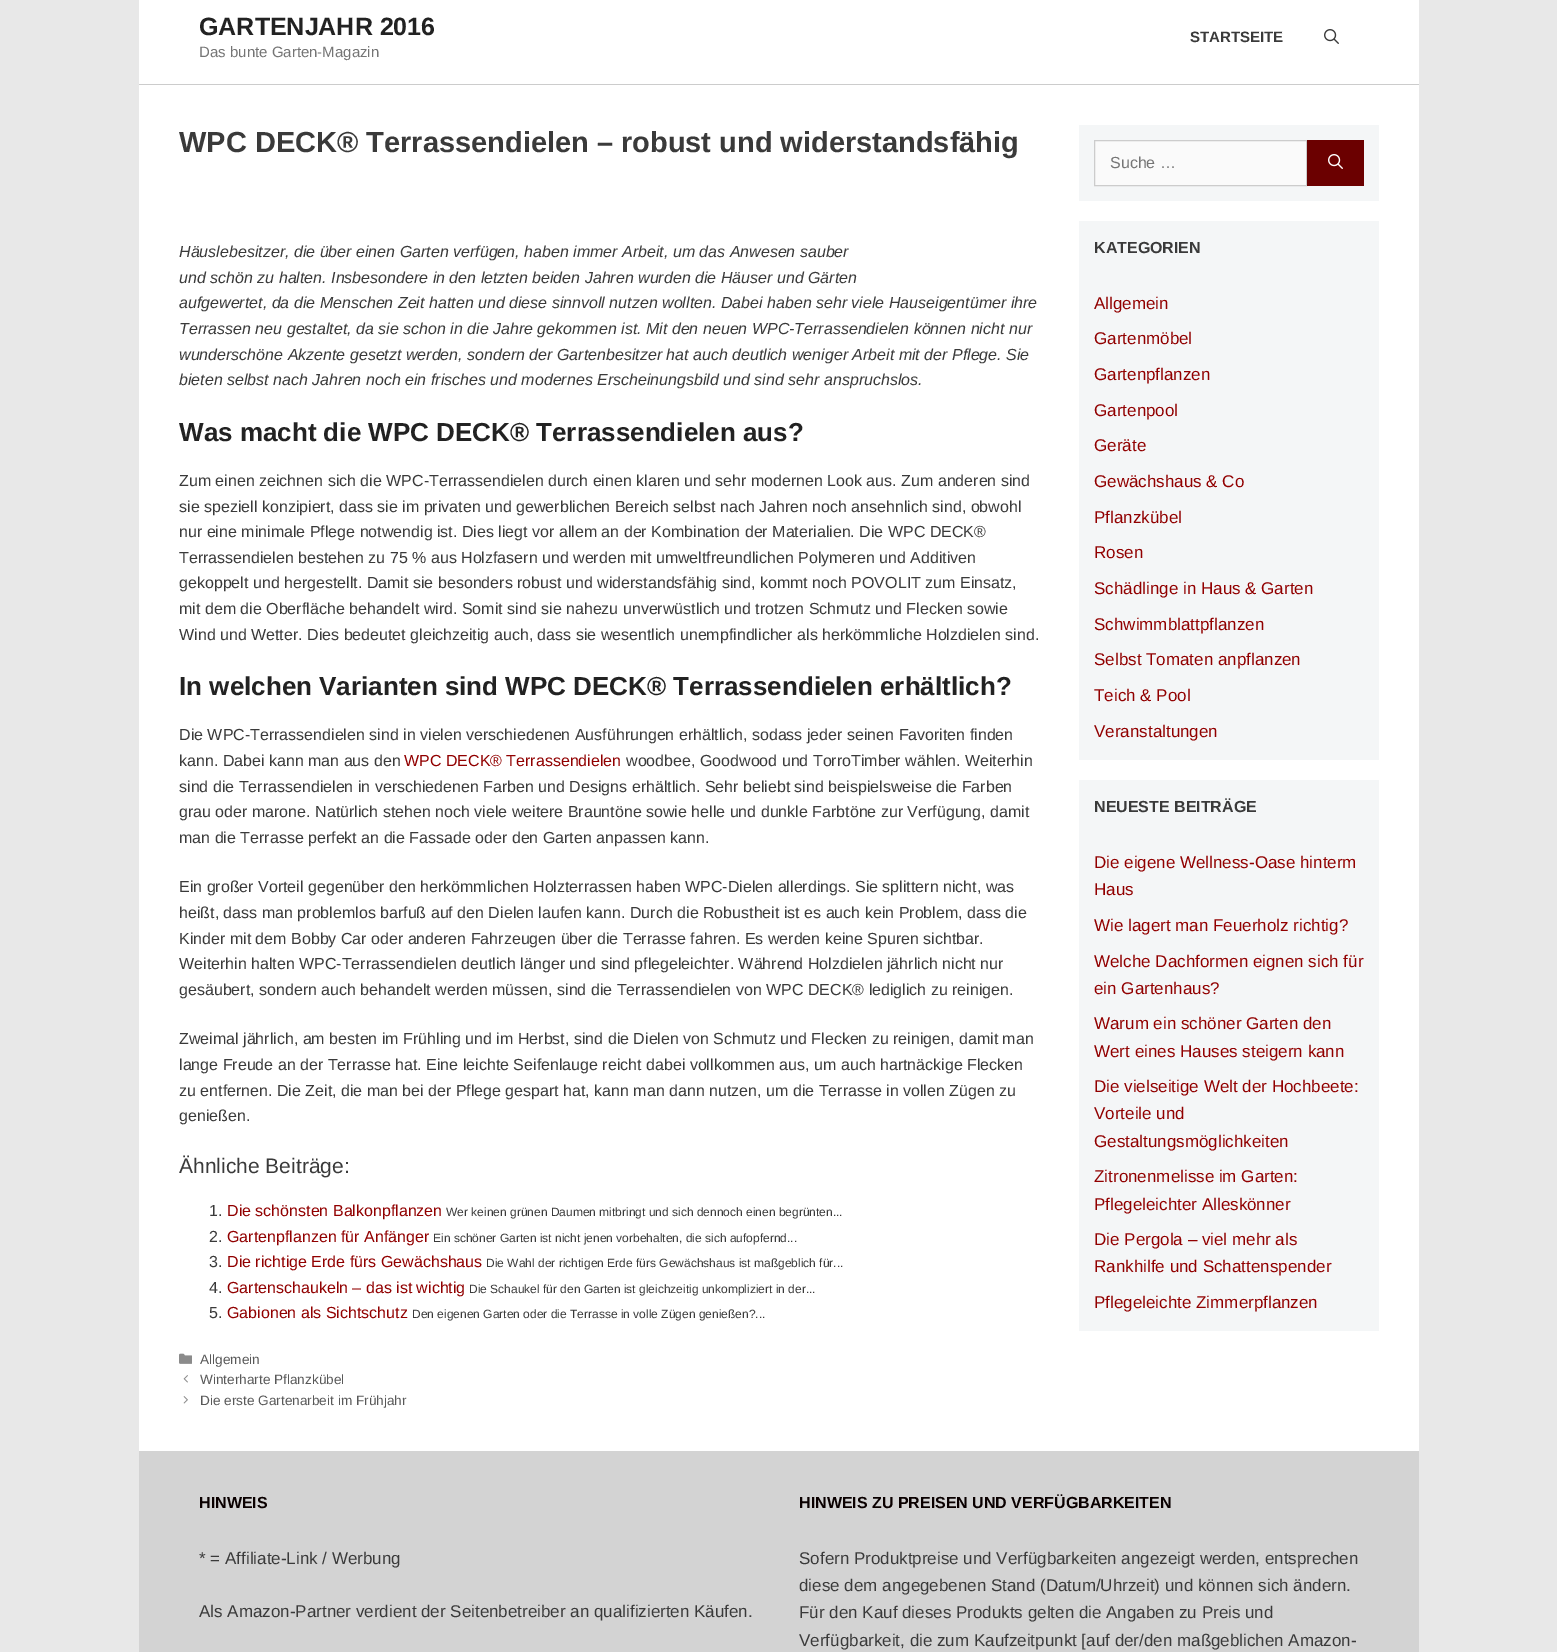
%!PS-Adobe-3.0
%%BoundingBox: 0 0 1557 1652
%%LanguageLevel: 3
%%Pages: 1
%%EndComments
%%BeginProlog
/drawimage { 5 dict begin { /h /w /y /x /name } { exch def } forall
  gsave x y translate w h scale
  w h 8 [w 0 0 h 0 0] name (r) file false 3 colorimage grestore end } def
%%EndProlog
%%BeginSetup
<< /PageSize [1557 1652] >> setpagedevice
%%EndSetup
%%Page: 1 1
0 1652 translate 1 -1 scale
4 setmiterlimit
0.91 setgray
0 0 1557 1652 rectfill
1 setgray
139 0 1280 84 rectfill
0.8 setgray
139 84 1280 1 rectfill
(images/1.raw) 1324 29 15 15 drawimage
1 setgray
139 85 1280 1366 rectfill
(images/2.raw) 179 1353 13 11 drawimage
(images/3.raw) 183 1375 5 8 drawimage
(images/4.raw) 183 1396 5 8 drawimage
0.957 0.965 0.969 setrgbcolor
1079 125 300 76 rectfill
0.98 setgray
newpath 1094.5 140.5 moveto 1306.5 140.5 lineto 1306.5 185.5 lineto 1094.5 185.5 lineto closepath gsave fill grestore
0.8 setgray
stroke
0.42 0 0 setrgbcolor
1307 140 57 46 rectfill
(images/5.raw) 1328 154 15 15 drawimage
0.957 0.965 0.969 setrgbcolor
1079 221 300 539 rectfill
1079 780 300 551 rectfill
0.827 setgray
139 1451 1280 201 rectfill
/LiberationSans-Bold [25 0 0 -25 0 0] selectfont
0.133 setgray
199 35 moveto (GARTENJAHR 2016) show
/LiberationSans-Regular [15 0 0 -15 0 0] selectfont
0.459 setgray
199 57 moveto (Das bunte Garten-Magazin) show
/LiberationSans-Bold [15 0 0 -15 0 0] selectfont
0.227 setgray
1190 42 moveto (STARTSEITE) show
/LiberationSans-Bold [29 0 0 -29 0 0] selectfont
179 152 moveto (WPC DECK® Terrassendielen – robust und widerstandsfähig) show
/LiberationSans-Italic [16 0 0 -16 0 0] selectfont
179 257 moveto (Häuslebesitzer, die über einen Garten verfügen, haben immer Arbeit, um das Anwesen sauber) show
179 283 moveto (und schön zu halten. Insbesondere in den letzten beiden Jahren wurden die Häuser und Gärten) show
179 308 moveto (aufgewertet, da die Menschen Zeit hatten und diese sinnvoll nutzen wollten. Dabei haben sehr viele Hauseigentümer ihre) show
179 334 moveto (Terrassen neu gestaltet, da sie schon in die Jahre gekommen ist. Mit den neuen WPC-Terrassendielen können nicht nur) show
179 360 moveto (wunderschöne Akzente gesetzt werden, sondern der Gartenbesitzer hat auch deutlich weniger Arbeit mit der Pflege. Sie) show
179 385 moveto (bieten selbst nach Jahren noch ein frisches und modernes Erscheinungsbild und sind sehr anspruchslos.) show
/LiberationSans-Bold [26 0 0 -26 0 0] selectfont
0.133 setgray
179 441 moveto (Was macht die WPC DECK® Terrassendielen aus?) show
/LiberationSans-Regular [16 0 0 -16 0 0] selectfont
0.227 setgray
179 486 moveto (Zum einen zeichnen sich die WPC-Terrassendielen durch einen klaren und sehr modernen Look aus. Zum anderen sind) show
179 512 moveto (sie speziell konzipiert, dass sie im privaten und gewerblichen Bereich selbst nach Jahren noch ansehnlich sind, obwohl) show
179 537 moveto (nur eine minimale Pflege notwendig ist. Dies liegt vor allem an der Kombination der Materialien. Die WPC DECK®) show
179 563 moveto (Terrassendielen bestehen zu 75 % aus Holzfasern und werden mit umweltfreundlichen Polymeren und Additiven) show
179 588 moveto (gekoppelt und hergestellt. Damit sie besonders robust und widerstandsfähig sind, kommt noch POVOLIT zum Einsatz,) show
179 614 moveto (mit dem die Oberfläche behandelt wird. Somit sind sie nahezu unverwüstlich und trotzen Schmutz und Flecken sowie) show
179 640 moveto (Wind und Wetter. Dies bedeutet gleichzeitig auch, dass sie wesentlich unempfindlicher als herkömmliche Holzdielen sind.) show
/LiberationSans-Bold [26 0 0 -26 0 0] selectfont
0.133 setgray
179 695 moveto (In welchen Varianten sind WPC DECK® Terrassendielen erhältlich?) show
/LiberationSans-Regular [16 0 0 -16 0 0] selectfont
0.227 setgray
179 740 moveto (Die WPC-Terrassendielen sind in vielen verschiedenen Ausführungen erhältlich, sodass jeder seinen Favoriten finden) show
179 766 moveto (kann. Dabei kann man aus den) show
0.569 0 0 setrgbcolor
404 766 moveto (WPC DECK® Terrassendielen) show
0.227 setgray
626 766 moveto (woodbee, Goodwood und TorroTimber wählen. Weiterhin) show
179 792 moveto (sind die Terrassendielen in verschiedenen Farben und Designs erhältlich. Sehr beliebt sind beispielsweise die Farben) show
179 817 moveto (grau oder marone. Natürlich stehen noch viele weitere Brauntöne sowie helle und dunkle Farbtöne zur Verfügung, damit) show
179 843 moveto (man die Terrasse perfekt an die Fassade oder den Garten anpassen kann.) show
179 892 moveto (Ein großer Vorteil gegenüber den herkömmlichen Holzterrassen haben WPC-Dielen allerdings. Sie splittern nicht, was) show
179 918 moveto (heißt, dass man problemlos barfuß auf den Dielen laufen kann. Durch die Robustheit ist es auch kein Problem, dass die) show
179 944 moveto (Kinder mit dem Bobby Car oder anderen Fahrzeugen über die Terrasse fahren. Es werden keine Spuren sichtbar.) show
179 969 moveto (Weiterhin halten WPC-Terrassendielen deutlich länger und sind pflegeleichter. Während Holzdielen jährlich nicht nur) show
179 995 moveto (gesäubert, sondern auch behandelt werden müssen, sind die Terrassendielen von WPC DECK® lediglich zu reinigen.) show
179 1044 moveto (Zweimal jährlich, am besten im Frühling und im Herbst, sind die Dielen von Schmutz und Flecken zu reinigen, damit man) show
179 1070 moveto (lange Freude an der Terrasse hat. Eine leichte Seifenlauge reicht dabei vollkommen aus, um auch hartnäckige Flecken) show
179 1096 moveto (zu entfernen. Die Zeit, die man bei der Pflege gespart hat, kann man dann nutzen, um die Terrasse in vollen Zügen zu) show
179 1121 moveto (genießen.) show
/LiberationSans-Regular [21 0 0 -21 0 0] selectfont
179 1173 moveto (Ähnliche Beiträge:) show
/LiberationSans-Regular [16 0 0 -16 0 0] selectfont
209 1216 moveto (1.) show
0.569 0 0 setrgbcolor
227 1216 moveto (Die schönsten Balkonpflanzen) show
/LiberationSans-Regular [12 0 0 -12 0 0] selectfont
0.227 setgray
446 1216 moveto (Wer keinen grünen Daumen mitbringt und sich dennoch einen begrünten...) show
/LiberationSans-Regular [16 0 0 -16 0 0] selectfont
209 1242 moveto (2.) show
0.569 0 0 setrgbcolor
227 1242 moveto (Gartenpflanzen für Anfänger) show
/LiberationSans-Regular [12 0 0 -12 0 0] selectfont
0.227 setgray
433 1242 moveto (Ein schöner Garten ist nicht jenen vorbehalten, die sich aufopfernd...) show
/LiberationSans-Regular [16 0 0 -16 0 0] selectfont
209 1267 moveto (3.) show
0.569 0 0 setrgbcolor
227 1267 moveto (Die richtige Erde fürs Gewächshaus) show
/LiberationSans-Regular [12 0 0 -12 0 0] selectfont
0.227 setgray
486 1267 moveto (Die Wahl der richtigen Erde fürs Gewächshaus ist maßgeblich für...) show
/LiberationSans-Regular [16 0 0 -16 0 0] selectfont
209 1293 moveto (4.) show
0.569 0 0 setrgbcolor
227 1293 moveto (Gartenschaukeln – das ist wichtig) show
/LiberationSans-Regular [12 0 0 -12 0 0] selectfont
0.227 setgray
469 1293 moveto (Die Schaukel für den Garten ist gleichzeitig unkompliziert in der...) show
/LiberationSans-Regular [16 0 0 -16 0 0] selectfont
209 1318 moveto (5.) show
0.569 0 0 setrgbcolor
227 1318 moveto (Gabionen als Sichtschutz) show
/LiberationSans-Regular [12 0 0 -12 0 0] selectfont
0.227 setgray
412 1318 moveto (Den eigenen Garten oder die Terrasse in volle Zügen genießen?...) show
/LiberationSans-Regular [13.6 0 0 -13.6 0 0] selectfont
0.349 setgray
200 1364 moveto (Allgemein) show
200 1384 moveto (Winterharte Pflanzkübel) show
200 1405 moveto (Die erste Gartenarbeit im Frühjahr) show
/LiberationSans-Regular [16 0 0 -16 0 0] selectfont
0.459 setgray
1110 168 moveto (Suche …) show
/LiberationSans-Bold [16 0 0 -16 0 0] selectfont
0.227 setgray
1094 253 moveto (KATEGORIEN) show
/LiberationSans-Regular [17 0 0 -17 0 0] selectfont
0.569 0 0 setrgbcolor
1094 309 moveto (Allgemein) show
1094 344 moveto (Gartenmöbel) show
1094 380 moveto (Gartenpflanzen) show
1094 416 moveto (Gartenpool) show
1094 451 moveto (Geräte) show
1094 487 moveto (Gewächshaus & Co) show
1094 523 moveto (Pflanzkübel) show
1094 558 moveto (Rosen) show
1094 594 moveto (Schädlinge in Haus & Garten) show
1094 630 moveto (Schwimmblattpflanzen) show
1094 665 moveto (Selbst Tomaten anpflanzen) show
1094 701 moveto (Teich & Pool) show
1094 737 moveto (Veranstaltungen) show
/LiberationSans-Bold [16 0 0 -16 0 0] selectfont
0.227 setgray
1094 812 moveto (NEUESTE BEITRÄGE) show
/LiberationSans-Regular [17 0 0 -17 0 0] selectfont
0.569 0 0 setrgbcolor
1094 868 moveto (Die eigene Wellness-Oase hinterm) show
1094 895 moveto (Haus) show
1094 931 moveto (Wie lagert man Feuerholz richtig?) show
1094 967 moveto (Welche Dachformen eignen sich für) show
1094 994 moveto (ein Gartenhaus?) show
1094 1029 moveto (Warum ein schöner Garten den) show
1094 1057 moveto (Wert eines Hauses steigern kann) show
1094 1092 moveto (Die vielseitige Welt der Hochbeete:) show
1094 1119 moveto (Vorteile und) show
1094 1147 moveto (Gestaltungsmöglichkeiten) show
1094 1182 moveto (Zitronenmelisse im Garten:) show
1094 1210 moveto (Pflegeleichter Alleskönner) show
1094 1245 moveto (Die Pergola – viel mehr als) show
1094 1272 moveto (Rankhilfe und Schattenspender) show
1094 1308 moveto (Pflegeleichte Zimmerpflanzen) show
/LiberationSans-Bold [16 0 0 -16 0 0] selectfont
0.039 0 0 setrgbcolor
199 1508 moveto (HINWEIS) show
/LiberationSans-Regular [17 0 0 -17 0 0] selectfont
0.227 setgray
199 1564 moveto (* = Affiliate-Link / Werbung) show
199 1617 moveto (Als Amazon-Partner verdient der Seitenbetreiber an qualifizierten Käufen.) show
/LiberationSans-Bold [16 0 0 -16 0 0] selectfont
0.039 0 0 setrgbcolor
799 1508 moveto (HINWEIS ZU PREISEN UND VERFÜGBARKEITEN) show
/LiberationSans-Regular [17 0 0 -17 0 0] selectfont
0.227 setgray
799 1564 moveto (Sofern Produktpreise und Verfügbarkeiten angezeigt werden, entsprechen) show
799 1591 moveto (diese dem angegebenen Stand \(Datum/Uhrzeit\) und können sich ändern.) show
799 1618 moveto (Für den Kauf dieses Produkts gelten die Angaben zu Preis und) show
799 1646 moveto (Verfügbarkeit, die zum Kaufzeitpunkt [auf der/den maßgeblichen Amazon-) show
showpage
%%EOF
